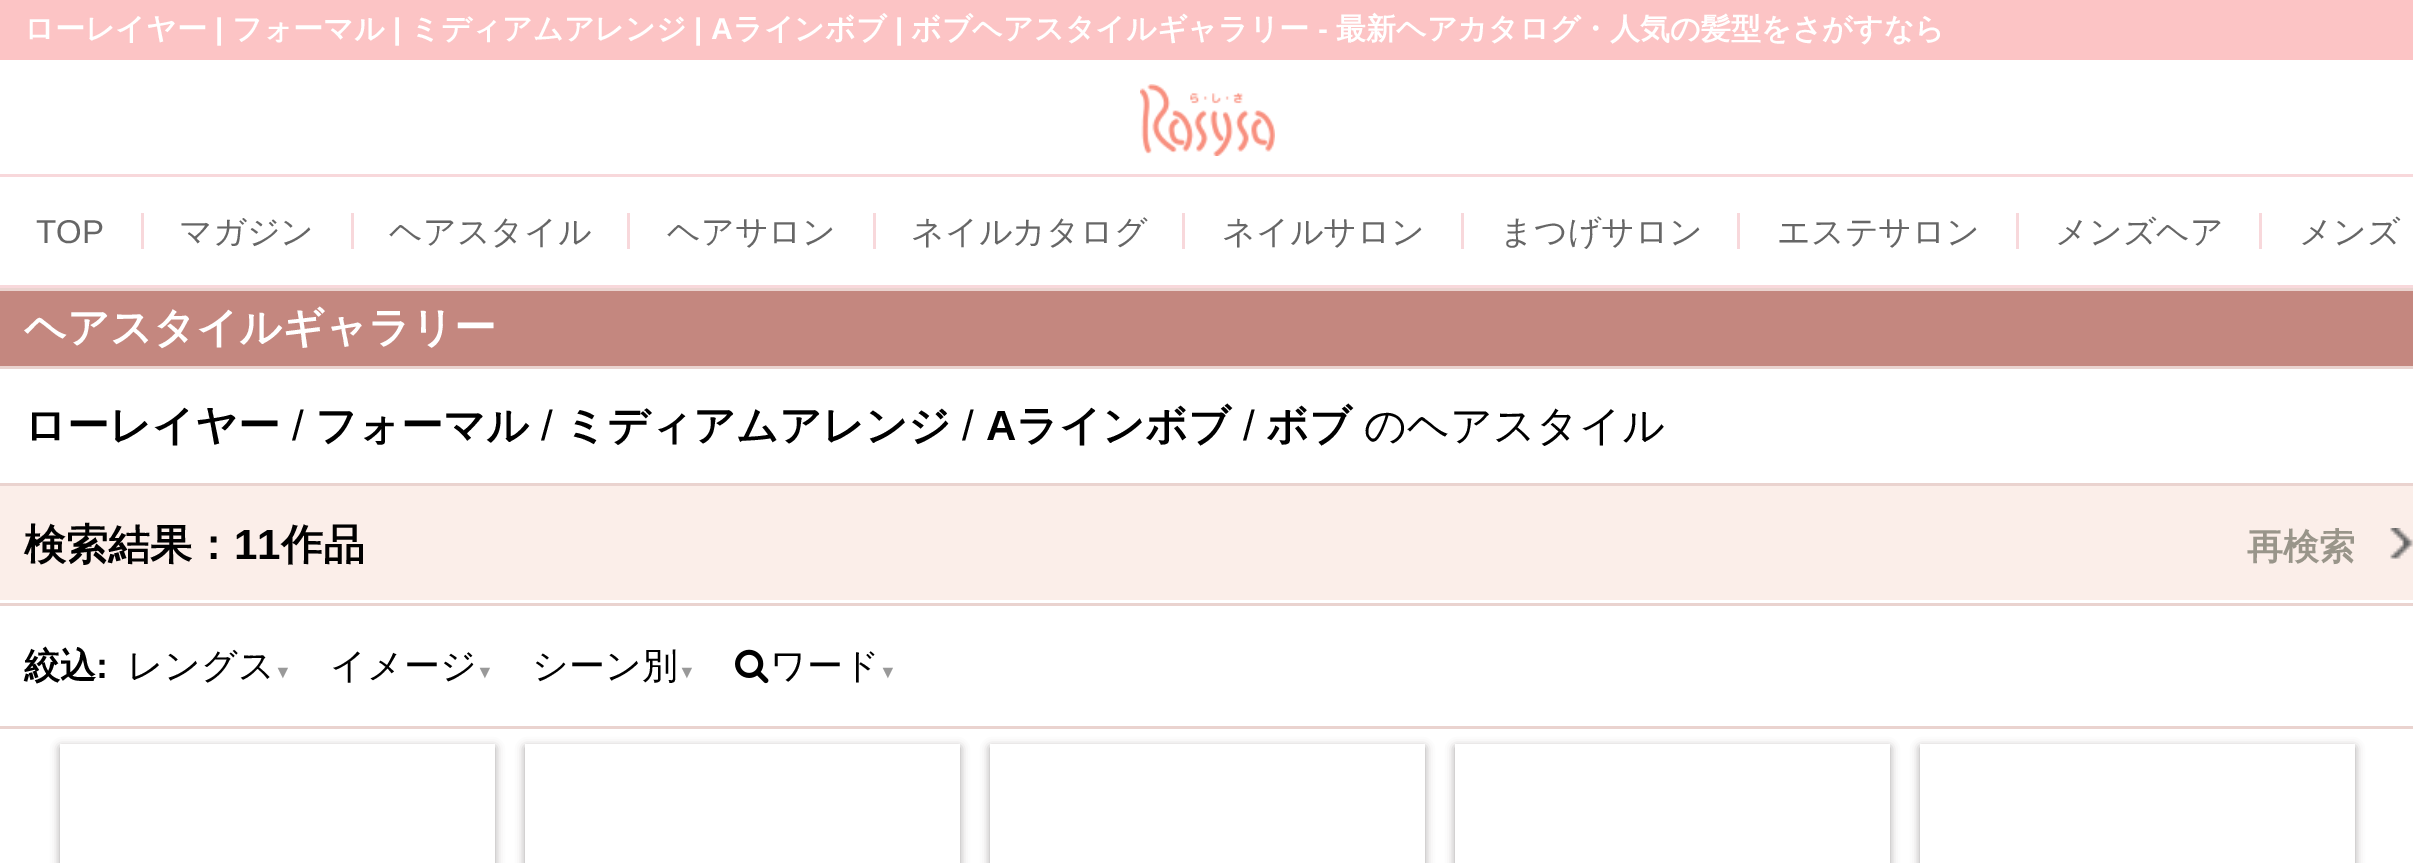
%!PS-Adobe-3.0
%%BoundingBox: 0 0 2413 863
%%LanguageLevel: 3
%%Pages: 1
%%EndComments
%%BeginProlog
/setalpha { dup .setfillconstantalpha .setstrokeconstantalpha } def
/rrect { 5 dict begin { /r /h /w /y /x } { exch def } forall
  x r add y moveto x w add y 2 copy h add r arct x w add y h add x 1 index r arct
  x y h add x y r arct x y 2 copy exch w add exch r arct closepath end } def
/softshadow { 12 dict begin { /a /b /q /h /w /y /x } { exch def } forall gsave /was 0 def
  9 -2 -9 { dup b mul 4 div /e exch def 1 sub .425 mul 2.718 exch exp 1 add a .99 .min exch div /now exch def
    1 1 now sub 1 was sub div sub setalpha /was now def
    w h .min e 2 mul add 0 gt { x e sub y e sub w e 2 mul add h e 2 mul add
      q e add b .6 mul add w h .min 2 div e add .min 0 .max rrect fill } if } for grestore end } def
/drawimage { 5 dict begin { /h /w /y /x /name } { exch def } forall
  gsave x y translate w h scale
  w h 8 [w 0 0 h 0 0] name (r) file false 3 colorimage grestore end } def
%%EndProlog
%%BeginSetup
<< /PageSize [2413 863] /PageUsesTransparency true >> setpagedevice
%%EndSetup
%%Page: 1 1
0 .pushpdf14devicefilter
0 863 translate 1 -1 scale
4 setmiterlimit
1 setgray
0 0 2413 863 rectfill
0.988 0.769 0.773 setrgbcolor
0 0 2413 60 rectfill
0.973 0.847 0.859 setrgbcolor
0 174 2413 3 rectfill
(images/1.raw) 1140 84 135 72 drawimage
0 285 2413 3 rectfill
141 213 3 36 rectfill
351 213 3 36 rectfill
627 213 3 36 rectfill
873 213 3 36 rectfill
1182 213 3 36 rectfill
1461 213 3 36 rectfill
1737 213 3 36 rectfill
2016 213 3 36 rectfill
2259 213 3 36 rectfill
0.769 0.529 0.498 setrgbcolor
0 291 2413 75 rectfill
0.918 0.827 0.812 setrgbcolor
0 288 2413 3 rectfill
0 366 2413 3 rectfill
0.984 0.933 0.914 setrgbcolor
0 486 2413 114 rectfill
0.918 0.827 0.812 setrgbcolor
0 483 2413 3 rectfill
0 603 2413 3 rectfill
(images/2.raw) 2390 528 23 31 drawimage
0 726 2413 3 rectfill
(images/3.raw) 735 649 34 35 drawimage
gsave
newpath 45 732 moveto 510 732 lineto 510 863 lineto 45 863 lineto closepath 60 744 moveto 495 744 lineto 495 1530 lineto 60 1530 lineto closepath eoclip newpath
0.133 0.098 0.098 setrgbcolor
60 747 435 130 0 4.5 0.4 softshadow
grestore
gsave
newpath 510 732 moveto 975 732 lineto 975 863 lineto 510 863 lineto closepath 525 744 moveto 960 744 lineto 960 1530 lineto 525 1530 lineto closepath eoclip newpath
0.133 0.098 0.098 setrgbcolor
525 747 435 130 0 4.5 0.4 softshadow
grestore
gsave
newpath 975 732 moveto 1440 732 lineto 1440 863 lineto 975 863 lineto closepath 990 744 moveto 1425 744 lineto 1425 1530 lineto 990 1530 lineto closepath eoclip newpath
0.133 0.098 0.098 setrgbcolor
990 747 435 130 0 4.5 0.4 softshadow
grestore
gsave
newpath 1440 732 moveto 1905 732 lineto 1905 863 lineto 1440 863 lineto closepath 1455 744 moveto 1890 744 lineto 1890 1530 lineto 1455 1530 lineto closepath eoclip newpath
0.133 0.098 0.098 setrgbcolor
1455 747 435 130 0 4.5 0.4 softshadow
grestore
gsave
newpath 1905 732 moveto 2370 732 lineto 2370 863 lineto 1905 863 lineto closepath 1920 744 moveto 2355 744 lineto 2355 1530 lineto 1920 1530 lineto closepath eoclip newpath
0.133 0.098 0.098 setrgbcolor
1920 747 435 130 0 4.5 0.4 softshadow
grestore
/WenQuanYiZenHei-Bold [30 0 0 -30 0 0] selectfont
1 setgray
24 39 moveto (ローレイヤー) show
/LiberationSans-Bold [30 0 0 -30 0 0] selectfont
215 39 moveto (|) show
/WenQuanYiZenHei-Bold [30 0 0 -30 0 0] selectfont
232 39 moveto (フォーマル) show
/LiberationSans-Bold [30 0 0 -30 0 0] selectfont
393 39 moveto (|) show
/WenQuanYiZenHei-Bold [30 0 0 -30 0 0] selectfont
410 39 moveto (ミディアムアレンジ) show
/LiberationSans-Bold [30 0 0 -30 0 0] selectfont
694 39 moveto (| A) show
/WenQuanYiZenHei-Bold [30 0 0 -30 0 0] selectfont
733 39 moveto (ラインボブ) show
/LiberationSans-Bold [30 0 0 -30 0 0] selectfont
895 39 moveto (|) show
/WenQuanYiZenHei-Bold [30 0 0 -30 0 0] selectfont
911 39 moveto (ボブヘアスタイルギャラリー) show
/LiberationSans-Bold [30 0 0 -30 0 0] selectfont
1318 39 moveto (-) show
/WenQuanYiZenHei-Bold [30 0 0 -30 0 0] selectfont
1336 39 moveto (最新ヘアカタログ・人気の髪型をさがすなら) show
/LiberationSans-Regular [33 0 0 -33 0 0] selectfont
0.4 setgray
36 243 moveto (TOP) show
/WenQuanYiZenHei-Medium [33 0 0 -33 0 0] selectfont
179 243 moveto (マガジン) show
389 243 moveto (ヘアスタイル) show
667 243 moveto (ヘアサロン) show
911 243 moveto (ネイルカタログ) show
1222 243 moveto (ネイルサロン) show
1500 243 moveto (まつげサロン) show
1777 243 moveto (エステサロン) show
2055 243 moveto (メンズヘア) show
2299 243 moveto (メンズ) show
/WenQuanYiZenHei-Bold [42 0 0 -42 0 0] selectfont
1 setgray
24 342 moveto (ヘアスタイルギャラリー) show
0 setgray
24 440 moveto (ローレイヤー) show
/LiberationSans-Regular [42 0 0 -42 0 0] selectfont
292 440 moveto (/) show
/WenQuanYiZenHei-Bold [42 0 0 -42 0 0] selectfont
315 440 moveto (フォーマル) show
/LiberationSans-Regular [42 0 0 -42 0 0] selectfont
541 440 moveto (/) show
/WenQuanYiZenHei-Bold [42 0 0 -42 0 0] selectfont
564 440 moveto (ミディアムアレンジ) show
/LiberationSans-Regular [42 0 0 -42 0 0] selectfont
962 440 moveto (/) show
/LiberationSans-Bold [42 0 0 -42 0 0] selectfont
986 440 moveto (A) show
/WenQuanYiZenHei-Bold [42 0 0 -42 0 0] selectfont
1016 440 moveto (ラインボブ) show
/LiberationSans-Regular [42 0 0 -42 0 0] selectfont
1243 440 moveto (/) show
/WenQuanYiZenHei-Bold [42 0 0 -42 0 0] selectfont
1266 440 moveto (ボブ) show
/WenQuanYiZenHei-Medium [42 0 0 -42 0 0] selectfont
1364 440 moveto (のヘアスタイル) show
/WenQuanYiZenHei-Bold [42 0 0 -42 0 0] selectfont
24 559 moveto (検索結果：) show
/LiberationSans-Bold [42 0 0 -42 0 0] selectfont
234 559 moveto (11) show
/WenQuanYiZenHei-Bold [42 0 0 -42 0 0] selectfont
281 559 moveto (作品) show
/WenQuanYiZenHei-Bold [36 0 0 -36 0 0] selectfont
0.6 0.584 0.541 setrgbcolor
2247 559 moveto (再検索) show
0 setgray
24 678 moveto (絞込) show
/LiberationSans-Bold [36 0 0 -36 0 0] selectfont
96 678 moveto (:) show
/WenQuanYiZenHei-Medium [36 0 0 -36 0 0] selectfont
127 678 moveto (レングス) show
/LiberationSans-Regular [18 0 0 -18 0 0] selectfont
0.6 setgray
274 678 moveto (▼) show
/WenQuanYiZenHei-Medium [36 0 0 -36 0 0] selectfont
0 setgray
330 678 moveto (イメージ) show
/LiberationSans-Regular [18 0 0 -18 0 0] selectfont
0.6 setgray
476 678 moveto (▼) show
/WenQuanYiZenHei-Medium [36 0 0 -36 0 0] selectfont
0 setgray
532 678 moveto (シーン別) show
/LiberationSans-Regular [18 0 0 -18 0 0] selectfont
0.6 setgray
678 678 moveto (▼) show
/WenQuanYiZenHei-Medium [36 0 0 -36 0 0] selectfont
0 setgray
770 678 moveto (ワード) show
/LiberationSans-Regular [18 0 0 -18 0 0] selectfont
0.6 setgray
879 678 moveto (▼) show
.poppdf14devicefilter showpage
%%EOF
